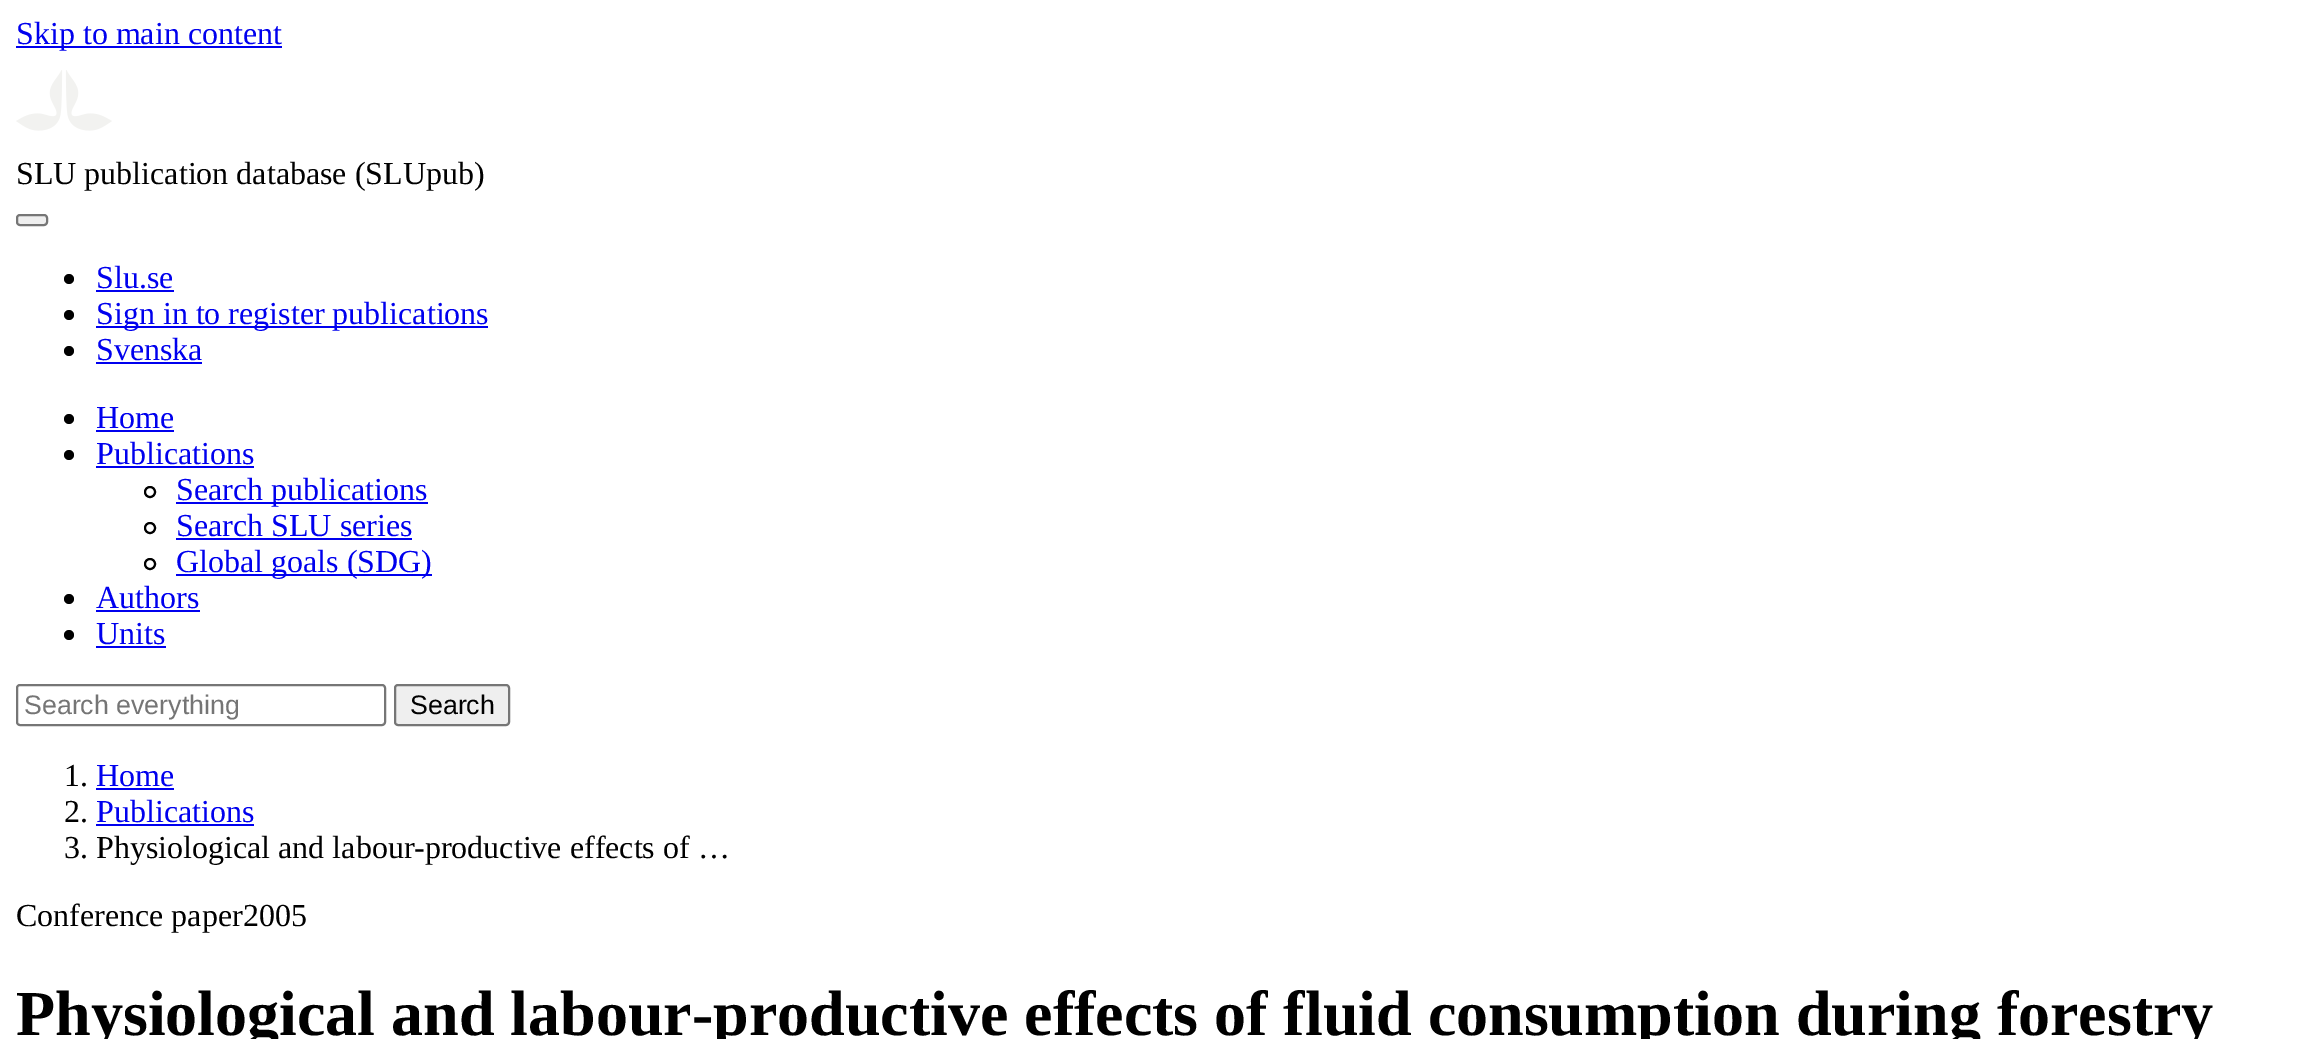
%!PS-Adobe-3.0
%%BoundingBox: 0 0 2310 1039
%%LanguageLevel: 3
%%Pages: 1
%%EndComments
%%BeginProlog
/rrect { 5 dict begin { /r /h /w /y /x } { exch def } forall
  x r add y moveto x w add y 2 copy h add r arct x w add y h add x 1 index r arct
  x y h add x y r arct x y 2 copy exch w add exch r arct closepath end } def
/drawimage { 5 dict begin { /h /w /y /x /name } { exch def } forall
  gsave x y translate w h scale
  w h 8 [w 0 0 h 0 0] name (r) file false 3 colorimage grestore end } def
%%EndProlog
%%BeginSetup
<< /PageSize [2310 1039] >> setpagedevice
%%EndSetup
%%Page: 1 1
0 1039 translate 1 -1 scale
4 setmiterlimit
1 setgray
0 0 2310 1039 rectfill
0 0 0.933 setrgbcolor
16 46 266 2 rectfill
(images/1.raw) 16 70 96 61 drawimage
0.937 setgray
17 215 30 10 3 rrect gsave fill grestore
0.463 setgray
2 setlinewidth
stroke
0 setgray
newpath 69 279 5 0 360 arc closepath fill
0 0 0.933 setrgbcolor
96 290 78 2 rectfill
0 setgray
newpath 69 315 5 0 360 arc closepath fill
0 0 0.933 setrgbcolor
96 326 392 2 rectfill
0 setgray
newpath 69 351 5 0 360 arc closepath fill
0 0 0.933 setrgbcolor
96 362 106 2 rectfill
0 setgray
newpath 69 419 5 0 360 arc closepath fill
0 0 0.933 setrgbcolor
96 430 78 2 rectfill
0 setgray
newpath 69 455 5 0 360 arc closepath fill
0 0 0.933 setrgbcolor
96 466 158 2 rectfill
0 setgray
newpath 150 492 5 0 360 arc closepath stroke
0 0 0.933 setrgbcolor
176 502 252 2 rectfill
0 setgray
newpath 150 528 5 0 360 arc closepath stroke
0 0 0.933 setrgbcolor
176 538 236 2 rectfill
0 setgray
newpath 150 564 5 0 360 arc closepath stroke
0 0 0.933 setrgbcolor
176 574 256 2 rectfill
0 setgray
newpath 69 599 5 0 360 arc closepath fill
0 0 0.933 setrgbcolor
96 610 104 2 rectfill
0 setgray
newpath 69 635 5 0 360 arc closepath fill
0 0 0.933 setrgbcolor
96 646 70 2 rectfill
0.463 setgray
17 685 368 40 3 rrect stroke
0.937 setgray
395 685 114 40 3 rrect gsave fill grestore
0.463 setgray
stroke
0 0 0.933 setrgbcolor
96 788 78 2 rectfill
96 824 158 2 rectfill
/LiberationSerif-Regular [32 0 0 -32 0 0] selectfont
16 44 moveto (Skip to main content) show
0 setgray
16 184 moveto (SLU publication database \(SLUpub\)) show
0 0 0.933 setrgbcolor
96 288 moveto (Slu.se) show
96 324 moveto (Sign in to register publications) show
96 360 moveto (Svenska) show
96 428 moveto (Home) show
96 464 moveto (Publications) show
176 500 moveto (Search publications) show
176 536 moveto (Search SLU series) show
176 572 moveto (Global goals \(SDG\)) show
96 608 moveto (Authors) show
96 644 moveto (Units) show
/LiberationSans-Regular [26.75 0 0 -26.75 0 0] selectfont
0.459 setgray
24 714 moveto (Search everything) show
0 setgray
410 714 moveto (Search) show
/LiberationSerif-Regular [32 0 0 -32 0 0] selectfont
64 786 moveto (1.) show
0 0 0.933 setrgbcolor
96 786 moveto (Home) show
0 setgray
64 822 moveto (2.) show
0 0 0.933 setrgbcolor
96 822 moveto (Publications) show
0 setgray
64 858 moveto (3. Physiological and labour-productive effects of …) show
16 926 moveto (Conference paper2005) show
/LiberationSerif-Bold [64 0 0 -64 0 0] selectfont
16 1035 moveto (Physiological and labour-productive effects of fluid consumption during forestry) show
showpage
%%EOF
